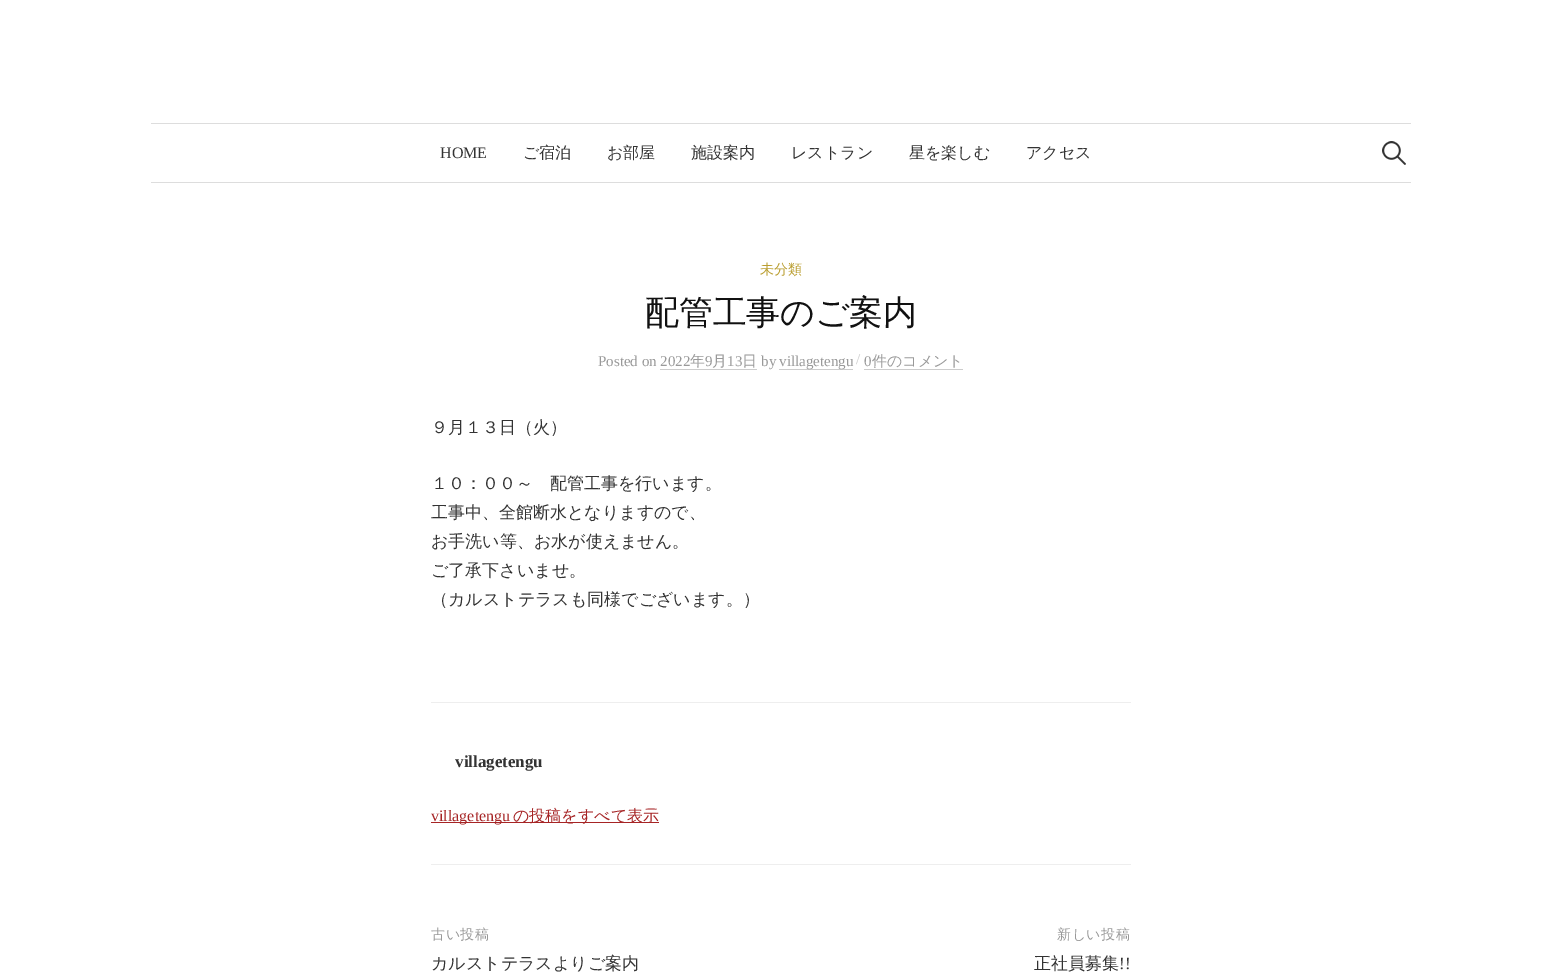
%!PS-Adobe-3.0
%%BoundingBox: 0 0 1561 978
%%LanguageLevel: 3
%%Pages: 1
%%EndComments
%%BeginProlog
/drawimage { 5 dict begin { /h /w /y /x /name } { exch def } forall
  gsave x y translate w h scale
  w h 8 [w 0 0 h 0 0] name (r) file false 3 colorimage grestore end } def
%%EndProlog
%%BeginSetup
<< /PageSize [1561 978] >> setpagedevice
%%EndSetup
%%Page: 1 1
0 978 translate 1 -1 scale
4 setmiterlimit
1 setgray
0 0 1561 978 rectfill
0.867 setgray
151 123 1260 1 rectfill
151 182 1260 1 rectfill
(images/1.raw) 1382 141 24 24 drawimage
0.8 setgray
660 369 97 1 rectfill
779 369 74 1 rectfill
864 369 99 1 rectfill
0.933 setgray
431 702 700 1 rectfill
431 864 700 1 rectfill
0.651 0.141 0.145 setrgbcolor
431 822 228 1 rectfill
/LiberationSerif-Regular [16 0 0 -16 0 0] selectfont
0.2 setgray
440 158 moveto (HOME) show
/WenQuanYiZenHei-Medium [16 0 0 -16 0 0] selectfont
523 158 moveto (ご宿泊) show
607 158 moveto (お部屋) show
691 158 moveto (施設案内) show
791 158 moveto (レストラン) show
909 158 moveto (星を楽しむ) show
1026 158 moveto (アクセス) show
/WenQuanYiZenHei-Medium [14 0 0 -14 0 0] selectfont
0.729 0.62 0.188 setrgbcolor
760 274 moveto (未分類) show
/WenQuanYiZenHei-Medium [34 0 0 -34 0 0] selectfont
0.067 setgray
645 324 moveto -0.25 0 (配管工事のご案内) ashow
/LiberationSerif-Regular [15 0 0 -15 0 0] selectfont
0.6 setgray
598 366 moveto (Posted on 2022) show
/WenQuanYiZenHei-Medium [15 0 0 -15 0 0] selectfont
690 366 moveto (年) show
/LiberationSerif-Regular [15 0 0 -15 0 0] selectfont
705 366 moveto (9) show
/WenQuanYiZenHei-Medium [15 0 0 -15 0 0] selectfont
712 366 moveto (月) show
/LiberationSerif-Regular [15 0 0 -15 0 0] selectfont
727 366 moveto (13) show
/WenQuanYiZenHei-Medium [15 0 0 -15 0 0] selectfont
742 366 moveto (日) show
/LiberationSerif-Regular [15 0 0 -15 0 0] selectfont
761 366 moveto (by) show
779 366 moveto (villagetengu) show
0.8 setgray
856 364 moveto (/) show
0.6 setgray
864 366 moveto (0) show
/WenQuanYiZenHei-Medium [15 0 0 -15 0 0] selectfont
872 366 moveto (件のコメント) show
/WenQuanYiZenHei-Medium [17 0 0 -17 0 0] selectfont
0.2 setgray
431 433 moveto (９月１３日（火）) show
431 489 moveto (１０：００～　配管工事を行います。) show
431 518 moveto (工事中、全館断水となりますので、) show
431 547 moveto (お手洗い等、お水が使えません。) show
431 576 moveto (ご了承下さいませ。) show
431 605 moveto (（カルストテラスも同様でございます。）) show
/LiberationSerif-Bold [17 0 0 -17 0 0] selectfont
455 767 moveto (villagetengu) show
/LiberationSerif-Regular [16 0 0 -16 0 0] selectfont
0.651 0.141 0.145 setrgbcolor
431 821 moveto (villagetengu) show
/WenQuanYiZenHei-Medium [16 0 0 -16 0 0] selectfont
513 821 moveto (の投稿をすべて表示) show
/WenQuanYiZenHei-Medium [14 0 0 -14 0 0] selectfont
0.6 setgray
431 939 moveto 0.5 0 (古い投稿) ashow
/WenQuanYiZenHei-Medium [17 0 0 -17 0 0] selectfont
0.2 setgray
431 969 moveto (カルストテラスよりご案内) show
/WenQuanYiZenHei-Medium [14 0 0 -14 0 0] selectfont
0.6 setgray
1057 939 moveto 0.5 0 (新しい投稿) ashow
/WenQuanYiZenHei-Medium [17 0 0 -17 0 0] selectfont
0.2 setgray
1034 969 moveto (正社員募集) show
/LiberationSerif-Regular [17 0 0 -17 0 0] selectfont
1119 969 moveto (!!) show
showpage
%%EOF
